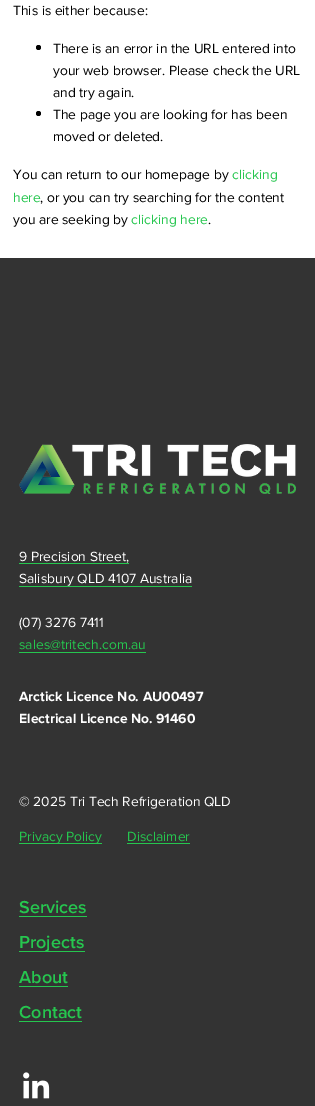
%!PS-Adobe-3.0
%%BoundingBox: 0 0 315 1106
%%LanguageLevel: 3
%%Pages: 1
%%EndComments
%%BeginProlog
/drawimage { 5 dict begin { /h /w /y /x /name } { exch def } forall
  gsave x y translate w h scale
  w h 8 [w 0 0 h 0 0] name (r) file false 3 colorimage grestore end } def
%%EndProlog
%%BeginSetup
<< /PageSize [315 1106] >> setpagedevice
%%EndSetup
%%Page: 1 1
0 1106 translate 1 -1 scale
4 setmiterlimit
1 setgray
0 0 315 1106 rectfill
0 setgray
newpath 38.5 47.5 2.5 0 360 arc closepath fill
newpath 38.5 113.5 2.5 0 360 arc closepath fill
0.2 setgray
0 258 315 848 rectfill
(images/1.raw) 19 444 277 50 drawimage
0.149 0.776 0.31 setrgbcolor
19 563 110 1 rectfill
19 586 173 1 rectfill
19 652 127 1 rectfill
19 843 83 1 rectfill
127 843 63 1 rectfill
19 916 68 1 rectfill
19 951 66 1 rectfill
19 986 49 1 rectfill
19 1021 63 1 rectfill
(images/2.raw) 23 1072 27 27 drawimage
/ProximaNova-Regular [13.8 0 0 -13.8 0 0] selectfont
0 setgray
13 15 moveto (This is either because:) show
53 53 moveto (There is an error in the URL entered into) show
53 75 moveto (your web browser. Please check the URL) show
53 97 moveto (and try again.) show
53 119 moveto (The page you are looking for has been) show
53 141 moveto (moved or deleted.) show
13 179 moveto (You can return to our homepage by) show
0.149 0.776 0.31 setrgbcolor
232 179 moveto (clicking) show
13 202 moveto (here) show
0 setgray
40 202 moveto (, or you can try searching for the content) show
13 224 moveto (you are seeking by) show
0.149 0.776 0.31 setrgbcolor
131 224 moveto (clicking here) show
0 setgray
208 224 moveto (.) show
1 setgray
19 561 moveto (9 Precision Street,) show
19 583 moveto (Salisbury QLD 4107 Australia) show
19 627 moveto (\(07\) 3276 7411) show
0.149 0.776 0.31 setrgbcolor
19 649 moveto (sales@tritech.com.au) show
/ProximaNova-Bold [13.8 0 0 -13.8 0 0] selectfont
1 setgray
19 701 moveto (Arctick Licence No. AU00497) show
19 723 moveto (Electrical Licence No. 91460) show
/ProximaNova-Regular [13.8 0 0 -13.8 0 0] selectfont
19 806 moveto (© 2025 Tri Tech Refrigeration QLD) show
0.149 0.776 0.31 setrgbcolor
19 841 moveto (Privacy Policy) show
127 841 moveto (Disclaimer) show
/ProximaNova-SemiBold [18 0 0 -18 0 0] selectfont
19 913 moveto (Services) show
19 948 moveto (Projects) show
19 983 moveto (About) show
19 1018 moveto (Contact) show
showpage
%%EOF
